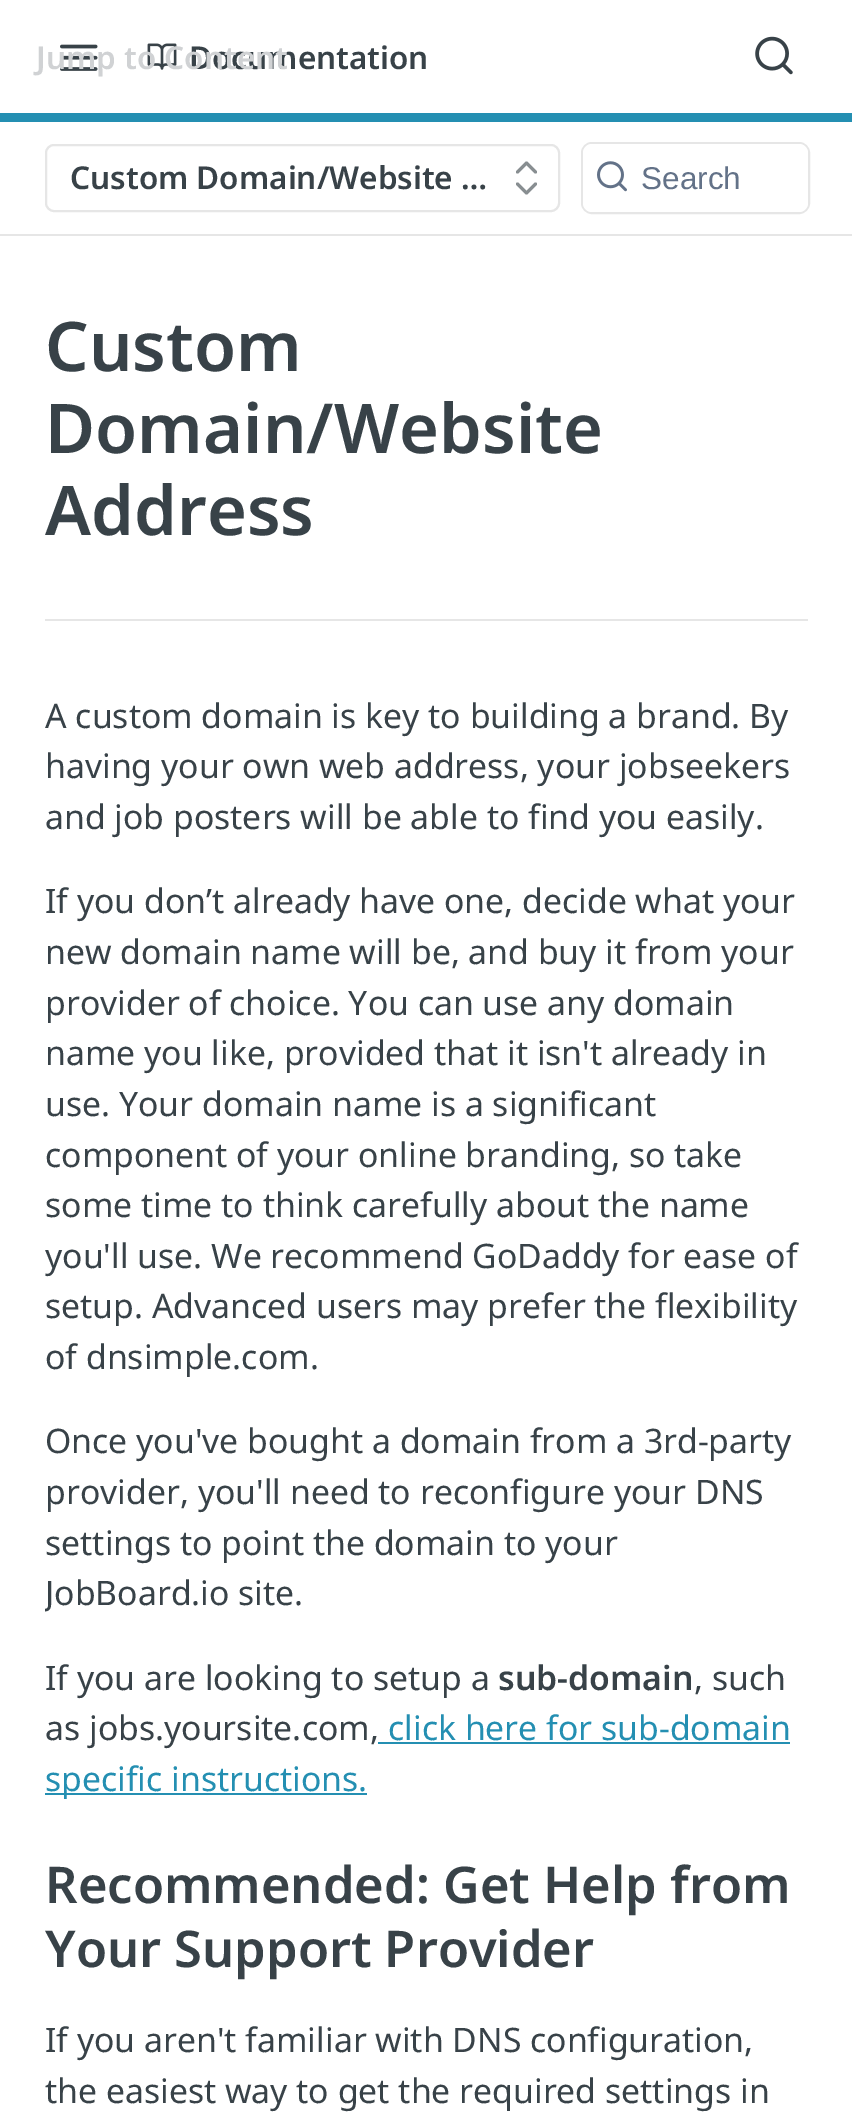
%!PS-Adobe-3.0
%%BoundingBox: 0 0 852 2127
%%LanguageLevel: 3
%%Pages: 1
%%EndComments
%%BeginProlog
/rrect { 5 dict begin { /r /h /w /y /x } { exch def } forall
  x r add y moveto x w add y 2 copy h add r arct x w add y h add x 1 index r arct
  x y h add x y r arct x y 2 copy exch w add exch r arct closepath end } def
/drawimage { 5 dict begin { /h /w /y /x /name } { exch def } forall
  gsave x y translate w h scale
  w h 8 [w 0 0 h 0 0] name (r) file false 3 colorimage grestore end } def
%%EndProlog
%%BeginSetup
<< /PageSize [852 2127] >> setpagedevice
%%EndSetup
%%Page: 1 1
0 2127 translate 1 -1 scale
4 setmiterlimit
1 setgray
0 0 852 2127 rectfill
0.902 setgray
newpath 0 234 moveto 0 236 lineto 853 236 lineto 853 2 lineto 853 234 lineto closepath fill
0.141 0.561 0.698 setrgbcolor
0 113 852 9 rectfill
(images/1.raw) 60 44 38 27 drawimage
(images/2.raw) 147 43 30 27 drawimage
(images/3.raw) 755 36 38 39 drawimage
0.902 setgray
2 setlinewidth
46 145 513 66 8 rrect stroke
0.533 0.557 0.569 setrgbcolor
3 setlinewidth
1 setlinecap
1 setlinejoin
newpath 517.5 184 moveto 526.5 193 lineto 535.5 184 lineto 535.5 172 moveto 526.5 163 lineto 517.5 172 lineto stroke
0.902 setgray
2 setlinewidth
0 setlinecap
0 setlinejoin
582 143 227 70 10 rrect stroke
1 setgray
583 144 225 68 9 rrect fill
(images/4.raw) 597 161 30 31 drawimage
0.902 setgray
45 619 763 2 rectfill
0.141 0.561 0.698 setrgbcolor
378 1742 412 2 rectfill
45 1793 322 2 rectfill
/NotoSans-SemiBold [31.5 0 0 -31.5 0 0] selectfont
0.22 0.259 0.282 setrgbcolor
189 69 moveto (Documentation) show
0.816 0.824 0.831 setrgbcolor
36 69 moveto (Jump to Content) show
0.22 0.259 0.282 setrgbcolor
70 189 moveto (Custom Domain/Website …) show
/LiberationSans-Regular [31.5 0 0 -31.5 0 0] selectfont
0.388 0.447 0.533 setrgbcolor
641 189 moveto (Search) show
/NotoSans-SemiBold [68.5 0 0 -68.5 0 0] selectfont
0.22 0.259 0.282 setrgbcolor
45 371 moveto (Custom) show
45 453 moveto (Domain/Website) show
45 535 moveto (Address) show
/NotoSans-Regular [33.75 0 0 -33.75 0 0] selectfont
45 728 moveto (A custom domain is key to building a brand. By) show
45 778 moveto (having your own web address, your jobseekers) show
45 829 moveto (and job posters will be able to find you easily.) show
45 913 moveto (If you don’t already have one, decide what your) show
45 964 moveto (new domain name will be, and buy it from your) show
45 1015 moveto (provider of choice. You can use any domain) show
45 1065 moveto (name you like, provided that it isn't already in) show
45 1116 moveto (use. Your domain name is a significant) show
45 1167 moveto (component of your online branding, so take) show
45 1217 moveto (some time to think carefully about the name) show
45 1268 moveto (you'll use. We recommend GoDaddy for ease of) show
45 1318 moveto (setup. Advanced users may prefer the flexibility) show
45 1369 moveto (of dnsimple.com.) show
45 1453 moveto (Once you've bought a domain from a 3rd-party) show
45 1504 moveto (provider, you'll need to reconfigure your DNS) show
45 1555 moveto (settings to point the domain to your) show
gsave
45 621 763 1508 rectclip
45 1605 moveto (JobBoard.io site.) show
grestore
45 1690 moveto (If you are looking to setup a) show
/NotoSans-SemiBold [33.75 0 0 -33.75 0 0] selectfont
498 1690 moveto (sub-domain) show
/NotoSans-Regular [33.75 0 0 -33.75 0 0] selectfont
694 1690 moveto (, such) show
45 1740 moveto (as jobs.yoursite.com,) show
0.141 0.561 0.698 setrgbcolor
388 1740 moveto (click here for sub-domain) show
45 1791 moveto (specific instructions.) show
/NotoSans-SemiBold [50.6 0 0 -50.6 0 0] selectfont
0.22 0.259 0.282 setrgbcolor
45 1903 moveto (Recommended: Get Help from) show
45 1967 moveto (Your Support Provider) show
/NotoSans-Regular [33.75 0 0 -33.75 0 0] selectfont
45 2052 moveto (If you aren't familiar with DNS configuration,) show
45 2103 moveto (the easiest way to get the required settings in) show
showpage
%%EOF
